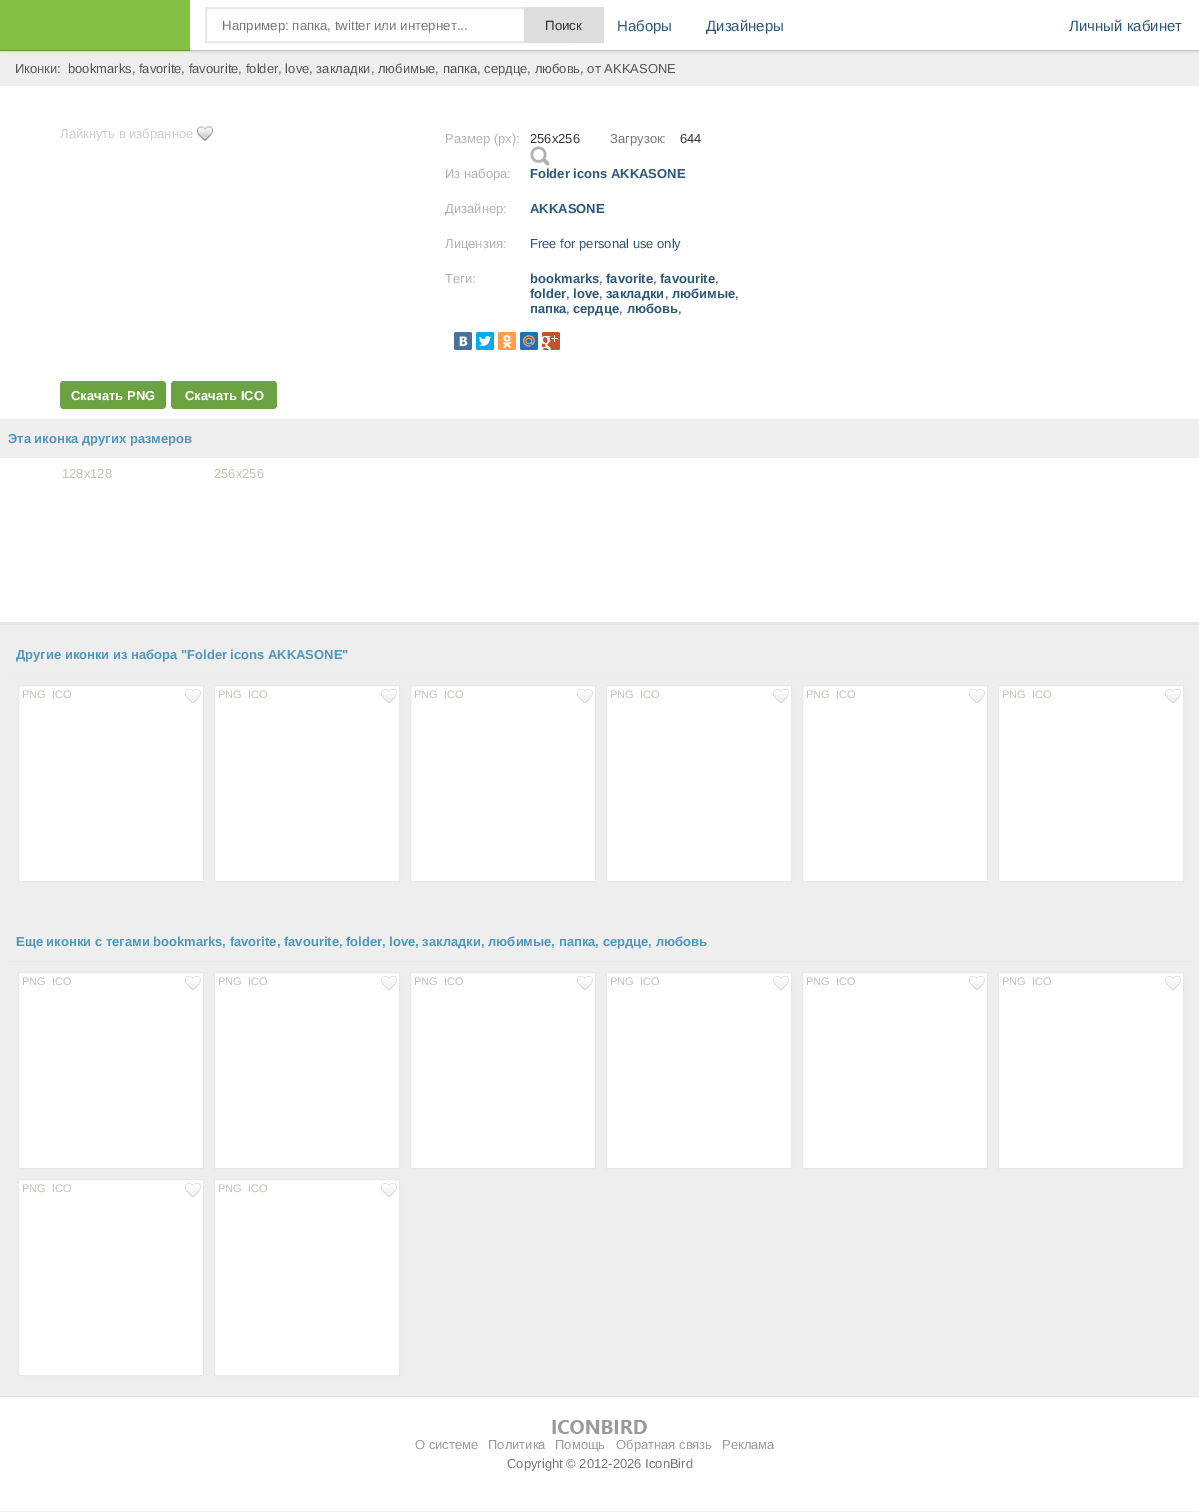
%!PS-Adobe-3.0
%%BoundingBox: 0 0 1199 1512
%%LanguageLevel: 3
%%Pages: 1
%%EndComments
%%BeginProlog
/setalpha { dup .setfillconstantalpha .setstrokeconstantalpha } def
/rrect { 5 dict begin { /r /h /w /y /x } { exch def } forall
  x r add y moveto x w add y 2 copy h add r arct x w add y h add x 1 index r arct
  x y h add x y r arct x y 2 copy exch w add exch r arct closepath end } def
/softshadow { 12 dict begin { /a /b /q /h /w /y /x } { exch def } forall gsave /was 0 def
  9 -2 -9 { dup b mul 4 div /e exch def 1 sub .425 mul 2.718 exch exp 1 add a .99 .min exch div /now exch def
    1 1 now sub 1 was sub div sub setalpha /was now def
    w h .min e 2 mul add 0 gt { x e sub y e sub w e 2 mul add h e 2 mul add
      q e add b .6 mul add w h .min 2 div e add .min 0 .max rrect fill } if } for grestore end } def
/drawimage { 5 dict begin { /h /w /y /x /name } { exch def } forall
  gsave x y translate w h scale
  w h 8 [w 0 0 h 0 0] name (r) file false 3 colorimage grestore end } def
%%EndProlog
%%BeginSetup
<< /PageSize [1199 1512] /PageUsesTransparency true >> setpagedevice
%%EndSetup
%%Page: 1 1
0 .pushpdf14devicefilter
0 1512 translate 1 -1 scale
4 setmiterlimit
0.933 setgray
0 0 1199 1512 rectfill
0.839 setgray
190 50 1009 1 rectfill
0 setgray
0 2 1199 50 0 1 0.1 softshadow
1 setgray
190 0 1009 50 rectfill
0.518 0.753 0.267 setrgbcolor
0 0 190 50 rectfill
0.4 0.592 0.192 setrgbcolor
0 50 190 1 rectfill
0.914 setgray
2 setlinewidth
206 8 367 34 rectstroke
0.867 setgray
524 7 80 36 rectfill
1 setgray
0 86 1199 333 rectfill
(images/1.raw) 197 126 16 15 drawimage
(images/2.raw) 530 146 20 20 drawimage
0.42 0.639 0.259 setrgbcolor
60 381 106 28 4 rrect fill
newpath 64 381 moveto 162 381 lineto 164 381 166 383 166 385 curveto 166 405 lineto 166 407 164 409 162 409 curveto 64 409 lineto 62 409 60 407 60 405 curveto 60 385 lineto 60 383 62 381 64 381 curveto closepath 64 382 moveto 162 382 lineto 164 382 166 383 166 385 curveto 166 405 lineto 166 407 164 409 162 409 curveto 64 409 lineto 62 409 61 407 61 405 curveto 61 385 lineto 61 383 62 382 64 382 curveto closepath eofill
171 381 106 28 4 rrect fill
newpath 175 381 moveto 273 381 lineto 275 381 277 383 277 385 curveto 277 405 lineto 277 407 275 409 273 409 curveto 175 409 lineto 173 409 171 407 171 405 curveto 171 385 lineto 171 383 173 381 175 381 curveto closepath 175 382 moveto 273 382 lineto 275 382 277 383 277 385 curveto 277 405 lineto 277 407 275 409 273 409 curveto 175 409 lineto 173 409 172 407 172 405 curveto 172 385 lineto 172 383 173 382 175 382 curveto closepath eofill
0.282 0.447 0.62 setrgbcolor
454 332 18 18 2 rrect fill
(images/3.raw) 459 336 9 10 drawimage
0 0.675 0.929 setrgbcolor
476 332 18 18 2 rrect fill
(images/4.raw) 479 336 12 10 drawimage
1 0.624 0.302 setrgbcolor
498 332 18 18 2 rrect fill
(images/5.raw) 503 335 8 13 drawimage
0.133 0.431 0.718 setrgbcolor
520 332 18 18 2 rrect fill
(images/6.raw) 523 335 12 12 drawimage
0.761 0.322 0.204 setrgbcolor
542 332 18 18 2 rrect fill
(images/7.raw) 542 335 16 15 drawimage
1 setgray
0 458 1199 164 rectfill
0.902 setgray
0 622 1199 3 rectfill
0.914 setgray
8 674 1183 1 rectfill
1 setgray
newpath 18.5 685.5 moveto 203.5 685.5 lineto 203.5 881.5 lineto 18.5 881.5 lineto closepath gsave fill grestore
0.91 setgray
1 setlinewidth
stroke
(images/8.raw) 185 689 16 14 drawimage
1 setgray
newpath 214.5 685.5 moveto 399.5 685.5 lineto 399.5 881.5 lineto 214.5 881.5 lineto closepath gsave fill grestore
0.91 setgray
stroke
(images/8.raw) 381 689 16 14 drawimage
1 setgray
newpath 410.5 685.5 moveto 595.5 685.5 lineto 595.5 881.5 lineto 410.5 881.5 lineto closepath gsave fill grestore
0.91 setgray
stroke
(images/8.raw) 577 689 16 14 drawimage
1 setgray
newpath 606.5 685.5 moveto 791.5 685.5 lineto 791.5 881.5 lineto 606.5 881.5 lineto closepath gsave fill grestore
0.91 setgray
stroke
(images/8.raw) 773 689 16 14 drawimage
1 setgray
newpath 802.5 685.5 moveto 987.5 685.5 lineto 987.5 881.5 lineto 802.5 881.5 lineto closepath gsave fill grestore
0.91 setgray
stroke
(images/8.raw) 969 689 16 14 drawimage
1 setgray
newpath 998.5 685.5 moveto 1183.5 685.5 lineto 1183.5 881.5 lineto 998.5 881.5 lineto closepath gsave fill grestore
0.91 setgray
stroke
(images/8.raw) 1165 689 16 14 drawimage
0.914 setgray
8 961 1183 1 rectfill
1 setgray
newpath 18.5 972.5 moveto 203.5 972.5 lineto 203.5 1168.5 lineto 18.5 1168.5 lineto closepath gsave fill grestore
0.91 setgray
stroke
(images/8.raw) 185 976 16 14 drawimage
1 setgray
newpath 214.5 972.5 moveto 399.5 972.5 lineto 399.5 1168.5 lineto 214.5 1168.5 lineto closepath gsave fill grestore
0.91 setgray
stroke
(images/8.raw) 381 976 16 14 drawimage
1 setgray
newpath 410.5 972.5 moveto 595.5 972.5 lineto 595.5 1168.5 lineto 410.5 1168.5 lineto closepath gsave fill grestore
0.91 setgray
stroke
(images/8.raw) 577 976 16 14 drawimage
1 setgray
newpath 606.5 972.5 moveto 791.5 972.5 lineto 791.5 1168.5 lineto 606.5 1168.5 lineto closepath gsave fill grestore
0.91 setgray
stroke
(images/8.raw) 773 976 16 14 drawimage
1 setgray
newpath 802.5 972.5 moveto 987.5 972.5 lineto 987.5 1168.5 lineto 802.5 1168.5 lineto closepath gsave fill grestore
0.91 setgray
stroke
(images/8.raw) 969 976 16 14 drawimage
1 setgray
newpath 998.5 972.5 moveto 1183.5 972.5 lineto 1183.5 1168.5 lineto 998.5 1168.5 lineto closepath gsave fill grestore
0.91 setgray
stroke
(images/8.raw) 1165 976 16 14 drawimage
1 setgray
newpath 18.5 1179.5 moveto 203.5 1179.5 lineto 203.5 1375.5 lineto 18.5 1375.5 lineto closepath gsave fill grestore
0.91 setgray
stroke
(images/8.raw) 185 1183 16 14 drawimage
1 setgray
newpath 214.5 1179.5 moveto 399.5 1179.5 lineto 399.5 1375.5 lineto 214.5 1375.5 lineto closepath gsave fill grestore
0.91 setgray
stroke
(images/8.raw) 381 1183 16 14 drawimage
1 setgray
0 1397 1199 114 rectfill
0.902 setgray
0 1396 1199 1 rectfill
(images/9.raw) 552 1420 95 14 drawimage
/LiberationSans-Regular [13.3 0 0 -13.3 0 0] selectfont
0.467 setgray
222 30 moveto (Например: папка, twitter или интернет...) show
0.2 setgray
545 30 moveto (Поиск) show
/LiberationSans-Regular [15 0 0 -15 0 0] selectfont
0.169 0.345 0.478 setrgbcolor
617 31 moveto (Наборы) show
706 31 moveto (Дизайнеры) show
1069 31 moveto (Личный кабинет) show
/LiberationSans-Regular [13 0 0 -13 0 0] selectfont
0.333 setgray
15 73 moveto (Иконки:) show
68 73 moveto (bookmarks, favorite, favourite, folder, love, закладки, любимые, папка, сердце, любовь, от AKKASONE) show
0.8 setgray
60 138 moveto (Лайкнуть в избранное) show
/LiberationSans-Bold [13 0 0 -13 0 0] selectfont
1 setgray
71 400 moveto (Скачать PNG) show
185 400 moveto (Скачать ICO) show
/LiberationSans-Regular [13 0 0 -13 0 0] selectfont
0.698 setgray
445 143 moveto (Размер \(px\):) show
0.2 setgray
530 143 moveto (256x256) show
0.467 setgray
610 143 moveto (Загрузок:) show
0.2 setgray
680 143 moveto (644) show
0.698 setgray
445 178 moveto (Из набора:) show
/LiberationSans-Bold [13 0 0 -13 0 0] selectfont
0.169 0.345 0.478 setrgbcolor
530 178 moveto (Folder icons AKKASONE) show
/LiberationSans-Regular [13 0 0 -13 0 0] selectfont
0.698 setgray
445 213 moveto (Дизайнер:) show
/LiberationSans-Bold [13 0 0 -13 0 0] selectfont
0.169 0.345 0.478 setrgbcolor
530 213 moveto (AKKASONE) show
/LiberationSans-Regular [13 0 0 -13 0 0] selectfont
0.698 setgray
445 248 moveto (Лицензия:) show
0.169 0.345 0.478 setrgbcolor
530 248 moveto (Free for personal use only) show
0.698 setgray
445 283 moveto (Теги:) show
/LiberationSans-Bold [13 0 0 -13 0 0] selectfont
0.169 0.345 0.478 setrgbcolor
530 283 moveto (bookmarks) show
/LiberationSans-Regular [13 0 0 -13 0 0] selectfont
0.2 setgray
599 283 moveto (,) show
/LiberationSans-Bold [13 0 0 -13 0 0] selectfont
0.169 0.345 0.478 setrgbcolor
606 283 moveto (favorite) show
/LiberationSans-Regular [13 0 0 -13 0 0] selectfont
0.2 setgray
653 283 moveto (,) show
/LiberationSans-Bold [13 0 0 -13 0 0] selectfont
0.169 0.345 0.478 setrgbcolor
660 283 moveto (favourite) show
/LiberationSans-Regular [13 0 0 -13 0 0] selectfont
0.2 setgray
715 283 moveto (,) show
/LiberationSans-Bold [13 0 0 -13 0 0] selectfont
0.169 0.345 0.478 setrgbcolor
530 298 moveto (folder) show
/LiberationSans-Regular [13 0 0 -13 0 0] selectfont
0.2 setgray
566 298 moveto (,) show
/LiberationSans-Bold [13 0 0 -13 0 0] selectfont
0.169 0.345 0.478 setrgbcolor
573 298 moveto (love) show
/LiberationSans-Regular [13 0 0 -13 0 0] selectfont
0.2 setgray
599 298 moveto (,) show
/LiberationSans-Bold [13 0 0 -13 0 0] selectfont
0.169 0.345 0.478 setrgbcolor
606 298 moveto (закладки) show
/LiberationSans-Regular [13 0 0 -13 0 0] selectfont
0.2 setgray
665 298 moveto (,) show
/LiberationSans-Bold [13 0 0 -13 0 0] selectfont
0.169 0.345 0.478 setrgbcolor
672 298 moveto (любимые) show
/LiberationSans-Regular [13 0 0 -13 0 0] selectfont
0.2 setgray
735 298 moveto (,) show
/LiberationSans-Bold [13 0 0 -13 0 0] selectfont
0.169 0.345 0.478 setrgbcolor
530 313 moveto (папка) show
/LiberationSans-Regular [13 0 0 -13 0 0] selectfont
0.2 setgray
566 313 moveto (,) show
/LiberationSans-Bold [13 0 0 -13 0 0] selectfont
0.169 0.345 0.478 setrgbcolor
573 313 moveto (сердце) show
/LiberationSans-Regular [13 0 0 -13 0 0] selectfont
0.2 setgray
619 313 moveto (,) show
/LiberationSans-Bold [13 0 0 -13 0 0] selectfont
0.169 0.345 0.478 setrgbcolor
627 313 moveto (любовь) show
/LiberationSans-Regular [13 0 0 -13 0 0] selectfont
0.2 setgray
678 313 moveto (,) show
/LiberationSans-Bold [13 0 0 -13 0 0] selectfont
0.31 0.592 0.741 setrgbcolor
8 443 moveto (Эта иконка других размеров) show
/LiberationSans-Regular [13 0 0 -13 0 0] selectfont
0.753 0.753 0.71 setrgbcolor
62 478 moveto (128x128) show
214 478 moveto (256x256) show
/LiberationSans-Bold [13 0 0 -13 0 0] selectfont
0.31 0.592 0.741 setrgbcolor
16 659 moveto (Другие иконки из набора "Folder icons AKKASONE") show
/LiberationSans-Regular [11 0 0 -11 0 0] selectfont
0.753 0.753 0.71 setrgbcolor
22 698 moveto (PNG) show
52 698 moveto (ICO) show
218 698 moveto (PNG) show
248 698 moveto (ICO) show
414 698 moveto (PNG) show
444 698 moveto (ICO) show
610 698 moveto (PNG) show
640 698 moveto (ICO) show
806 698 moveto (PNG) show
836 698 moveto (ICO) show
1002 698 moveto (PNG) show
1032 698 moveto (ICO) show
/LiberationSans-Bold [13 0 0 -13 0 0] selectfont
0.31 0.592 0.741 setrgbcolor
16 946 moveto (Еще иконки с тегами bookmarks, favorite, favourite, folder, love, закладки, любимые, папка, сердце, любовь) show
/LiberationSans-Regular [11 0 0 -11 0 0] selectfont
0.753 0.753 0.71 setrgbcolor
22 985 moveto (PNG) show
52 985 moveto (ICO) show
218 985 moveto (PNG) show
248 985 moveto (ICO) show
414 985 moveto (PNG) show
444 985 moveto (ICO) show
610 985 moveto (PNG) show
640 985 moveto (ICO) show
806 985 moveto (PNG) show
836 985 moveto (ICO) show
1002 985 moveto (PNG) show
1032 985 moveto (ICO) show
22 1192 moveto (PNG) show
52 1192 moveto (ICO) show
218 1192 moveto (PNG) show
248 1192 moveto (ICO) show
/LiberationSans-Regular [13 0 0 -13 0 0] selectfont
0.6 setgray
415 1449 moveto (О системе) show
488 1449 moveto (Политика) show
555 1449 moveto (Помощь) show
616 1449 moveto (Обратная связь) show
722 1449 moveto (Реклама) show
0.467 setgray
507 1468 moveto (Copyright © 2012-2026 IconBird) show
.poppdf14devicefilter showpage
%%EOF
